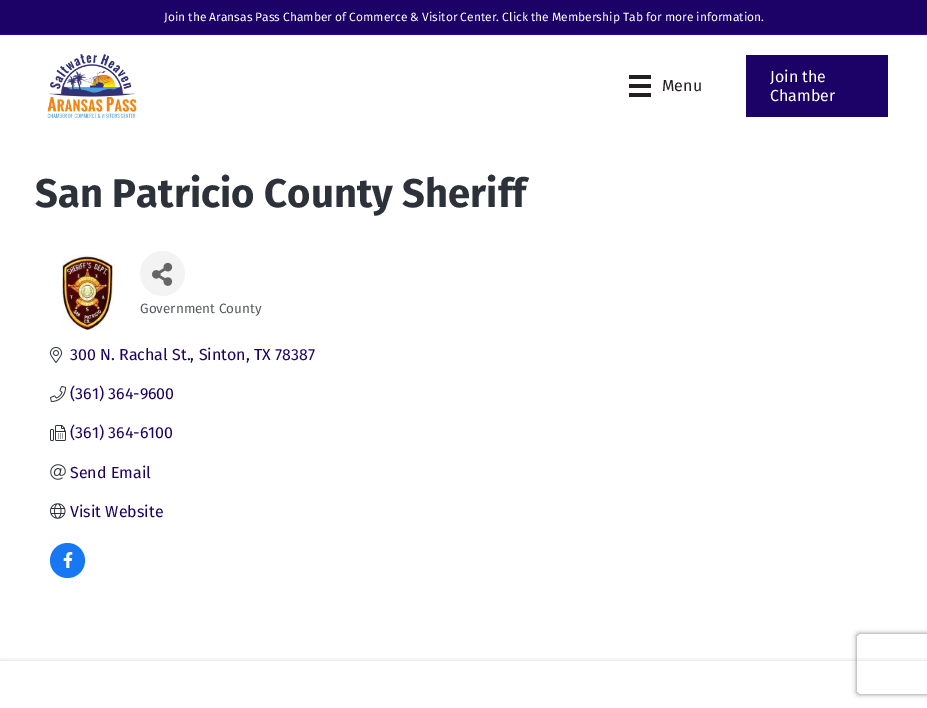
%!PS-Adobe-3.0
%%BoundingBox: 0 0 927 708
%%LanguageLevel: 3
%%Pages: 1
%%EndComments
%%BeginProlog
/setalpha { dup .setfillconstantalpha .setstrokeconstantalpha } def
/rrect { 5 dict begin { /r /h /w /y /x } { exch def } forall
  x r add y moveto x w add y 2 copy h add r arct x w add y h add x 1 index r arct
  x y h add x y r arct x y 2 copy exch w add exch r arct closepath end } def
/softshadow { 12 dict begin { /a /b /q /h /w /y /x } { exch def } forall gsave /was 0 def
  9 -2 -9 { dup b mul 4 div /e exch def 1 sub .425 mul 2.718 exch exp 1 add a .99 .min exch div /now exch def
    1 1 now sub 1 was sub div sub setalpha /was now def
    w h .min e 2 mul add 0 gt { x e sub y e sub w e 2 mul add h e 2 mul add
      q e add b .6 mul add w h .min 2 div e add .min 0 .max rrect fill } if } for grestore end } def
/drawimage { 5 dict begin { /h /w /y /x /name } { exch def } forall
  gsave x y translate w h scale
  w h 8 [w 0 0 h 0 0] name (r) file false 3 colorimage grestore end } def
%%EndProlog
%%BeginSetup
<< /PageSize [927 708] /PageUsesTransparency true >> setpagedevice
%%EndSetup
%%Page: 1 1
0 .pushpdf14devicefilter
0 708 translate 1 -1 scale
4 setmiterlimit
1 setgray
0 0 927 708 rectfill
0.11 0.008 0.4 setrgbcolor
0 0 927 34 rectfill
0.18 0.012 0.655 setrgbcolor
0 34 927 1 rectfill
(images/1.raw) 47 54 90 64 drawimage
0.137 0.122 0.125 setrgbcolor
629 75 22 4 rectfill
629 84 22 4 rectfill
629 93 22 4 rectfill
0.11 0.008 0.4 setrgbcolor
746 55 142 62 rectfill
(images/2.raw) 62 255 53 75 drawimage
0.953 setgray
newpath 162.5 273.5 22.5 0 360 arc closepath fill
(images/3.raw) 152 262 21 24 drawimage
(images/4.raw) 50 347 12 16 drawimage
(images/5.raw) 50 386 16 16 drawimage
(images/6.raw) 50 425 16 16 drawimage
(images/7.raw) 50 464 16 16 drawimage
(images/8.raw) 50 503 16 16 drawimage
0.094 0.467 0.949 setrgbcolor
newpath 67.5 560.5 17.5 0 360 arc closepath fill
(images/9.raw) 63 552 10 16 drawimage
gsave
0 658 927 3 rectclip
0 setgray
0 661 927 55 0 2.5 0.15 softshadow
grestore
gsave
newpath 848 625 moveto 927 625 lineto 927 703 lineto 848 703 lineto closepath 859 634 moveto 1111 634 lineto 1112 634 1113 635 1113 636 curveto 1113 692 lineto 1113 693 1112 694 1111 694 curveto 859 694 lineto 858 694 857 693 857 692 curveto 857 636 lineto 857 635 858 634 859 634 curveto closepath eoclip newpath
0.502 setgray
857 634 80 60 2 2.5 1 softshadow
grestore
/FiraSans-Regular [12 0 0 -12 0 0] selectfont
1 setgray
164 21 moveto (Join the Aransas Pass Chamber of Commerce & Visitor Center. Click the Membership Tab for more information.) show
/FiraSans-Regular [16 0 0 -16 0 0] selectfont
0.137 0.122 0.125 setrgbcolor
662 91 moveto (Menu) show
1 setgray
770 82 moveto (Join the) show
770 101 moveto (Chamber) show
/FiraSans-Bold [40 0 0 -40 0 0] selectfont
0.176 0.192 0.227 setrgbcolor
35 207 moveto (San Patricio County Sheriff) show
/FiraSans-Regular [13.5 0 0 -13.5 0 0] selectfont
0.341 0.353 0.38 setrgbcolor
140 313 moveto (Government County) show
/FiraSans-Regular [16 0 0 -16 0 0] selectfont
0.11 0.008 0.4 setrgbcolor
70 360 moveto (300 N. Rachal St., Sinton, TX 78387) show
70 399 moveto (\(361\) 364-9600) show
70 438 moveto (\(361\) 364-6100) show
70 478 moveto (Send Email) show
70 517 moveto (Visit Website) show
.poppdf14devicefilter showpage
%%EOF
